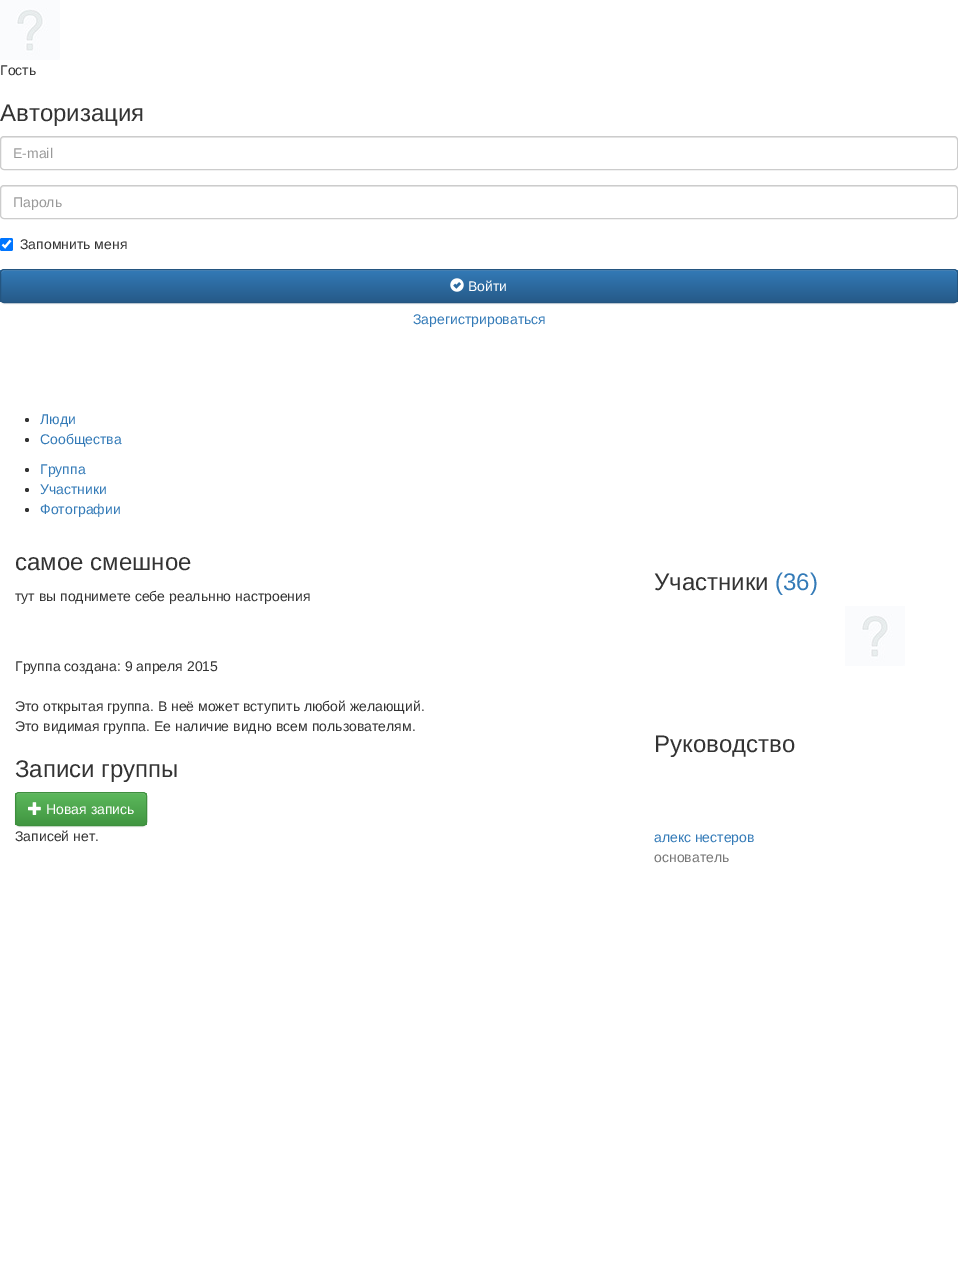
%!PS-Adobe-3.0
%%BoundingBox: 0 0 958 1263
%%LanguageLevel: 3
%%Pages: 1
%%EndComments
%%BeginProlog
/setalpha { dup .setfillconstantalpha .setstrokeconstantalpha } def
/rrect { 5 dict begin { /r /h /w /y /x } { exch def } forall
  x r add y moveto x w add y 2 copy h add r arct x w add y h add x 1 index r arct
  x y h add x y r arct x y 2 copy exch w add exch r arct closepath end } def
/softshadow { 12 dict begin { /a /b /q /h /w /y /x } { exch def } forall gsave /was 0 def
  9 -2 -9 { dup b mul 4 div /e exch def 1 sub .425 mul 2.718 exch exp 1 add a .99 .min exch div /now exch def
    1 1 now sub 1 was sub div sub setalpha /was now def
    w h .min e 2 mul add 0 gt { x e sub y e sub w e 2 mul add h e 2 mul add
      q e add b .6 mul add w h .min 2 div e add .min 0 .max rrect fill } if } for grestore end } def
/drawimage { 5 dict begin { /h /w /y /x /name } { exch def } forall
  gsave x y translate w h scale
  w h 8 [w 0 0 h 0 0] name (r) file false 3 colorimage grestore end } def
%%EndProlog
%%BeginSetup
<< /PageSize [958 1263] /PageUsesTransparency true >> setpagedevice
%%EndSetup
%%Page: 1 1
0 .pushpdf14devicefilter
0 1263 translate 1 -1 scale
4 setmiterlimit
1 setgray
0 0 958 1263 rectfill
(images/1.raw) 0 0 60 60 drawimage
0.925 setgray
newpath 4 138 moveto 954 138 lineto 956 138 957 139 957 141 curveto 957 139 956 137 954 137 curveto 4 137 lineto 2 137 1 139 1 141 curveto 1 139 2 138 4 138 curveto closepath fill
0.8 setgray
0.5 136.5 957 33 3.5 rrect stroke
0.925 setgray
newpath 4 187 moveto 954 187 lineto 956 187 957 188 957 190 curveto 957 188 956 186 954 186 curveto 4 186 lineto 2 186 1 188 1 190 curveto 1 188 2 187 4 187 curveto closepath fill
0.8 setgray
0.5 185.5 957 33 3.5 rrect stroke
0 0.459 1 setrgbcolor
0 238 13 13 2 rrect fill
1 setgray
2.1 setlinewidth
newpath 2.5 244.5 moveto 5 247 lineto 10.5 240.5 lineto stroke
0 setgray
0 270 958 34 4 0.5 0.07 softshadow
gsave
0 269 958 34 4 rrect clip newpath
gsave newpath 0 270 moveto 958 270 lineto 958 302 lineto 0 302 lineto closepath clip newpath
<< /ShadingType 2 /ColorSpace /DeviceRGB /Coords [479 270 479 302] /Extend [true true] /Function << /FunctionType 2 /Domain [0 1] /C0 [0.2 0.478 0.718] /C1 [0.149 0.353 0.533] /N 1 >> >> shfill grestore
grestore
0.322 0.557 0.757 setrgbcolor
newpath 4 271 moveto 954 271 lineto 956 271 957 272 957 274 curveto 957 272 956 270 954 270 curveto 4 270 lineto 2 270 1 272 1 274 curveto 1 272 2 271 4 271 curveto closepath fill
0.141 0.333 0.502 setrgbcolor
1 setlinewidth
0.5 269.5 957 33 3.5 rrect stroke
(images/2.raw) 450 278 14 14 drawimage
0.2 setgray
newpath 27 420 2 0 360 arc closepath fill
newpath 27 440 2 0 360 arc closepath fill
newpath 27 470 2 0 360 arc closepath fill
newpath 27 490 2 0 360 arc closepath fill
newpath 27 510 2 0 360 arc closepath fill
0 setgray
15 793 132 34 4 0.5 0.07 softshadow
gsave
15 792 132 34 4 rrect clip newpath
gsave newpath 15 793 moveto 147 793 lineto 147 825 lineto 15 825 lineto closepath clip newpath
<< /ShadingType 2 /ColorSpace /DeviceRGB /Coords [81 793 81 825] /Extend [true true] /Function << /FunctionType 2 /Domain [0 1] /C0 [0.361 0.722 0.361] /C1 [0.255 0.588 0.255] /N 1 >> >> shfill grestore
grestore
0.455 0.761 0.455 setrgbcolor
newpath 19 794 moveto 143 794 lineto 145 794 146 795 146 797 curveto 146 795 146 793 144 793 curveto 18 793 lineto 16 793 16 795 16 797 curveto 16 795 17 794 19 794 curveto closepath fill
0.243 0.561 0.243 setrgbcolor
15.5 792.5 131 33 3.5 rrect stroke
(images/3.raw) 28 802 13 13 drawimage
(images/1.raw) 845 606 60 60 drawimage
/LiberationSans-Regular [14 0 0 -14 0 0] selectfont
0.2 setgray
0 75 moveto (Гость) show
/LiberationSans-Regular [24 0 0 -24 0 0] selectfont
0 121 moveto (Авторизация) show
/LiberationSans-Regular [14 0 0 -14 0 0] selectfont
0.6 setgray
13 158 moveto (E-mail) show
13 207 moveto (Пароль) show
0.2 setgray
20 249 moveto (Запомнить меня) show
1 setgray
468 291 moveto (Войти) show
0.2 0.478 0.718 setrgbcolor
413 324 moveto (Зарегистрироваться) show
40 424 moveto (Люди) show
40 444 moveto (Сообщества) show
40 474 moveto (Группа) show
40 494 moveto (Участники) show
40 514 moveto (Фотографии) show
/LiberationSans-Regular [24 0 0 -24 0 0] selectfont
0.2 setgray
15 570 moveto (самое смешное) show
/LiberationSans-Regular [14 0 0 -14 0 0] selectfont
15 601 moveto (тут вы поднимете себе реальнно настроения) show
15 671 moveto (Группа создана: 9 апреля 2015) show
15 711 moveto (Это открытая группа. В неё может вступить любой желающий.) show
15 731 moveto (Это видимая группа. Ее наличие видно всем пользователям.) show
/LiberationSans-Regular [24 0 0 -24 0 0] selectfont
15 777 moveto (Записи группы) show
/LiberationSans-Regular [14 0 0 -14 0 0] selectfont
1 setgray
46 814 moveto (Новая запись) show
0.2 setgray
15 841 moveto (Записей нет.) show
/LiberationSans-Regular [24 0 0 -24 0 0] selectfont
654 590 moveto (Участники) show
0.2 0.478 0.718 setrgbcolor
775 590 moveto (\(36\)) show
0.2 setgray
654 752 moveto (Руководство) show
/LiberationSans-Regular [14 0 0 -14 0 0] selectfont
0.2 0.478 0.718 setrgbcolor
654 842 moveto (алекс нестеров) show
0.467 setgray
654 862 moveto (основатель) show
.poppdf14devicefilter showpage
%%EOF
